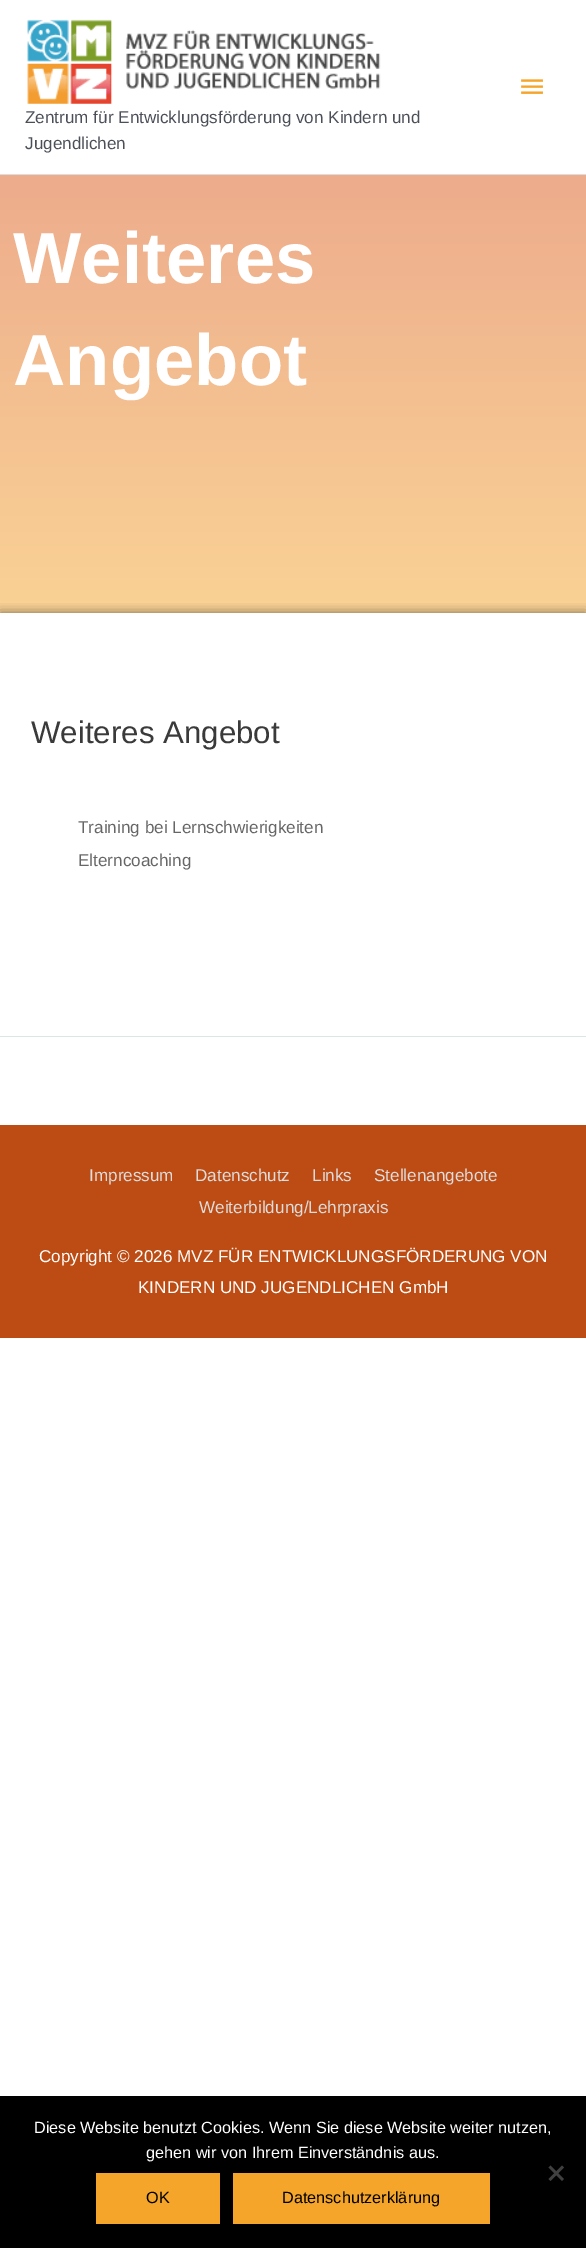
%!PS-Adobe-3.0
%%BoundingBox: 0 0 586 2248
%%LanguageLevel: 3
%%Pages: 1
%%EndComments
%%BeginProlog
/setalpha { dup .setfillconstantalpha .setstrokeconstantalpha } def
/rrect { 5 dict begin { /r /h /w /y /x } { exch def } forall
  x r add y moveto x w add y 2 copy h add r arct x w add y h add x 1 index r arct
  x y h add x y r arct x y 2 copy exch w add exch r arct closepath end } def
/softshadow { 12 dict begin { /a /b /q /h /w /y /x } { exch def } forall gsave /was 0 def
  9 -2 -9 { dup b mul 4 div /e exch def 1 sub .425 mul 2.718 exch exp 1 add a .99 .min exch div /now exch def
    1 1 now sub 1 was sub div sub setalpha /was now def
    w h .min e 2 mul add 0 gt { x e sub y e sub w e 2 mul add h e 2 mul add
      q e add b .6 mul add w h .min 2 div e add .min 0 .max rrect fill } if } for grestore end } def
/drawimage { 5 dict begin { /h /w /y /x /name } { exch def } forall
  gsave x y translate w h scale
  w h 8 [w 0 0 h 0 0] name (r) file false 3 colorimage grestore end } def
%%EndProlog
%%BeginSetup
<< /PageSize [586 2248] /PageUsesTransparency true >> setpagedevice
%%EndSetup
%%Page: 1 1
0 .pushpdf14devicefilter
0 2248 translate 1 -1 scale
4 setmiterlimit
1 setgray
0 0 586 2248 rectfill
0.867 setgray
0 174 586 1 rectfill
(images/1.raw) 521 79 22 15 drawimage
(images/2.raw) 27 19 354 85 drawimage
gsave newpath 0 175 moveto 586 175 lineto 586 613 lineto 0 613 lineto closepath clip newpath
<< /ShadingType 2 /ColorSpace /DeviceRGB /Coords [293 175 293 613] /Extend [true true] /Function << /FunctionType 2 /Domain [0 1] /C0 [0.929 0.675 0.549] /C1 [0.98 0.824 0.584] /N 1 >> >> shfill grestore
gsave
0 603 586 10 rectclip
0 setgray
0 613 586 87 0 6 0.5 softshadow
grestore
1 setgray
0 700 586 12 rectfill
0.855 0.906 0.902 setrgbcolor
0 1036 586 1 rectfill
0.737 0.298 0.078 setrgbcolor
0 1125 586 213 rectfill
0 setgray
0 2096 586 152 rectfill
0.251 setgray
newpath 562 2165.5 moveto 564 2167.5 lineto 550.5 2181 lineto 548.5 2179 lineto closepath fill
newpath 548.5 2167.5 moveto 550.5 2165.5 lineto 564 2179 lineto 562 2181 lineto closepath fill
0.961 0.647 0.165 setrgbcolor
96 2173 124 51 rectfill
233 2173 257 51 rectfill
/LiberationSans-Regular [17.1 0 0 -17.1 0 0] selectfont
0.294 0.31 0.345 setrgbcolor
25 123 moveto (Zentrum für Entwicklungsförderung von Kindern und) show
25 149 moveto (Jugendlichen) show
/LiberationSans-Bold [72.5 0 0 -72.5 0 0] selectfont
1 setgray
13 283 moveto (Weiteres) show
13 385 moveto (Angebot) show
/LiberationSans-Regular [31.25 0 0 -31.25 0 0] selectfont
0.227 setgray
31 743 moveto (Weiteres Angebot) show
/LiberationSans-Regular [17.1 0 0 -17.1 0 0] selectfont
0.4 setgray
78 833 moveto (Training bei Lernschwierigkeiten) show
78 866 moveto (Elterncoaching) show
0.867 setgray
89 1181 moveto (Impressum) show
195 1181 moveto (Datenschutz) show
312 1181 moveto (Links) show
374 1181 moveto (Stellenangebote) show
199 1213 moveto (Weiterbildung/Lehrpraxis) show
1 setgray
39 1262 moveto (Copyright © 2026 MVZ FÜR ENTWICKLUNGSFÖRDERUNG VON) show
138 1293 moveto (KINDERN UND JUGENDLICHEN GmbH) show
/LiberationSans-Regular [16.25 0 0 -16.25 0 0] selectfont
34 2133 moveto (Diese Website benutzt Cookies. Wenn Sie diese Website weiter nutzen,) show
146 2158 moveto (gehen wir von Ihrem Einverständnis aus.) show
0 setgray
146 2203 moveto (OK) show
282 2203 moveto (Datenschutzerklärung) show
.poppdf14devicefilter showpage
%%EOF
